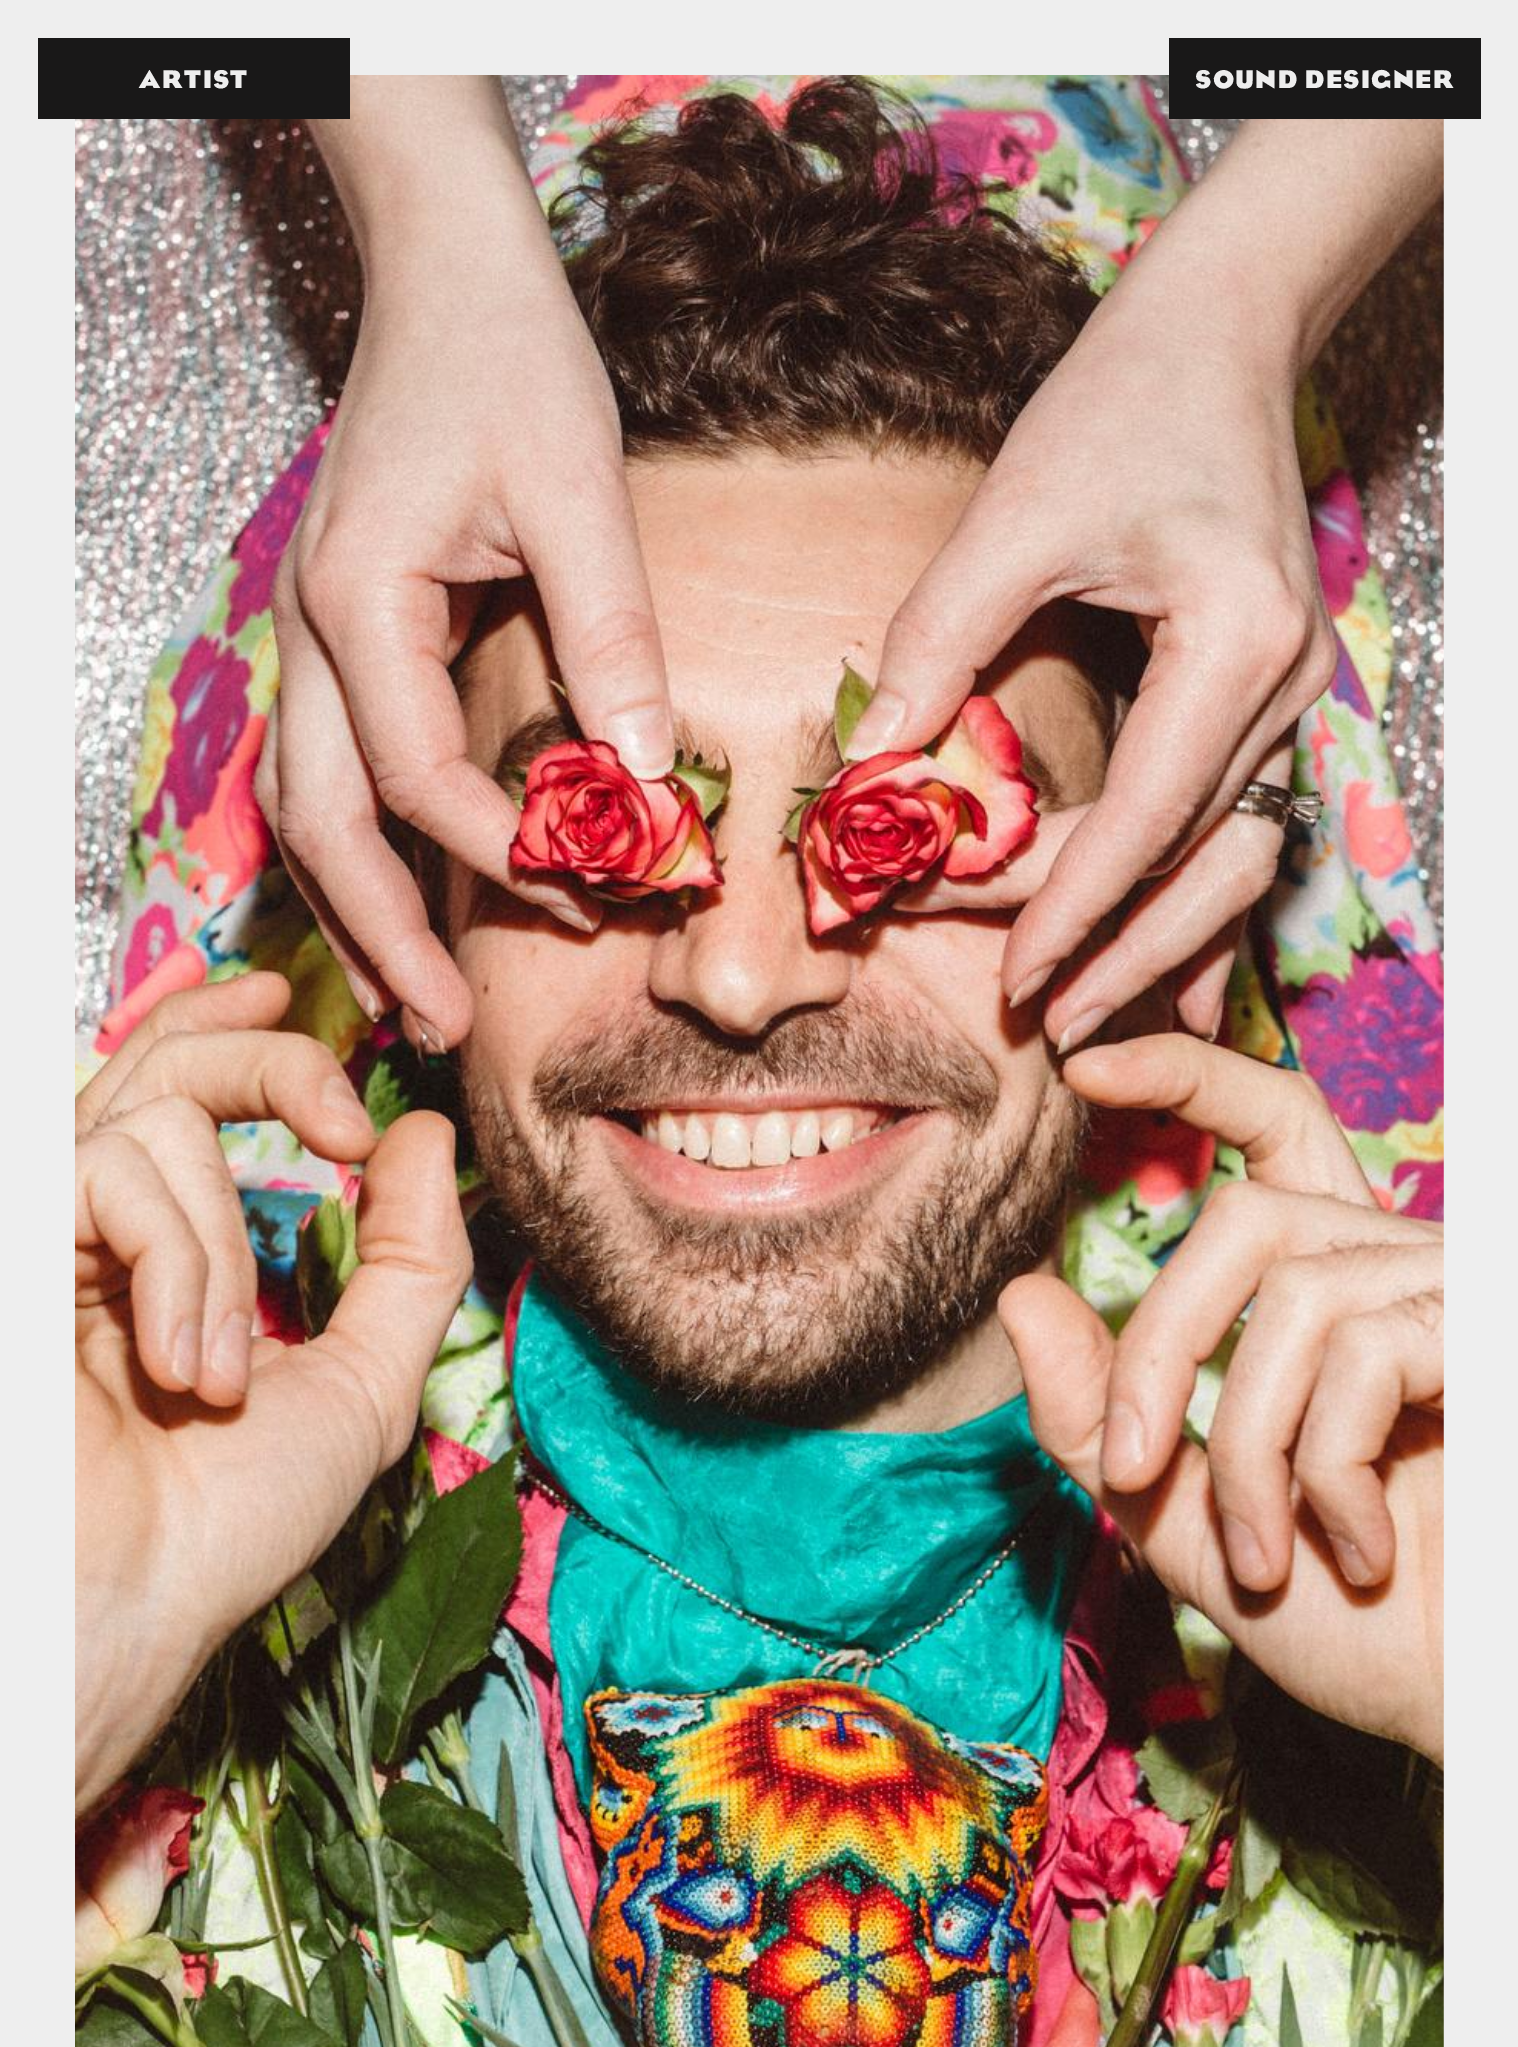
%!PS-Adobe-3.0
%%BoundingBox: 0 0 1518 2047
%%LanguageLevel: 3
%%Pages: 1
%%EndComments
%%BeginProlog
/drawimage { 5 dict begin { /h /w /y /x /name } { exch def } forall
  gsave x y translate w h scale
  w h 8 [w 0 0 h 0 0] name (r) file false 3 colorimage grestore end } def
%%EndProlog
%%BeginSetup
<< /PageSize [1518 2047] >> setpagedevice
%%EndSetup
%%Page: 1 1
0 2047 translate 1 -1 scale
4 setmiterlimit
0.933 setgray
0 0 1518 2047 rectfill
(images/1.raw) 75 75 1369 1972 drawimage
0.098 0.094 0.094 setrgbcolor
38 38 312 81 rectfill
1169 38 312 81 rectfill
/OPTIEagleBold-Bold [22.5 0 0 -22.5 0 0] selectfont
0.933 setgray
138 88 moveto 1.5 0 (ARTIST) ashow
1195 88 moveto 1.5 0 (SOUND DESIGNER) ashow
showpage
%%EOF
